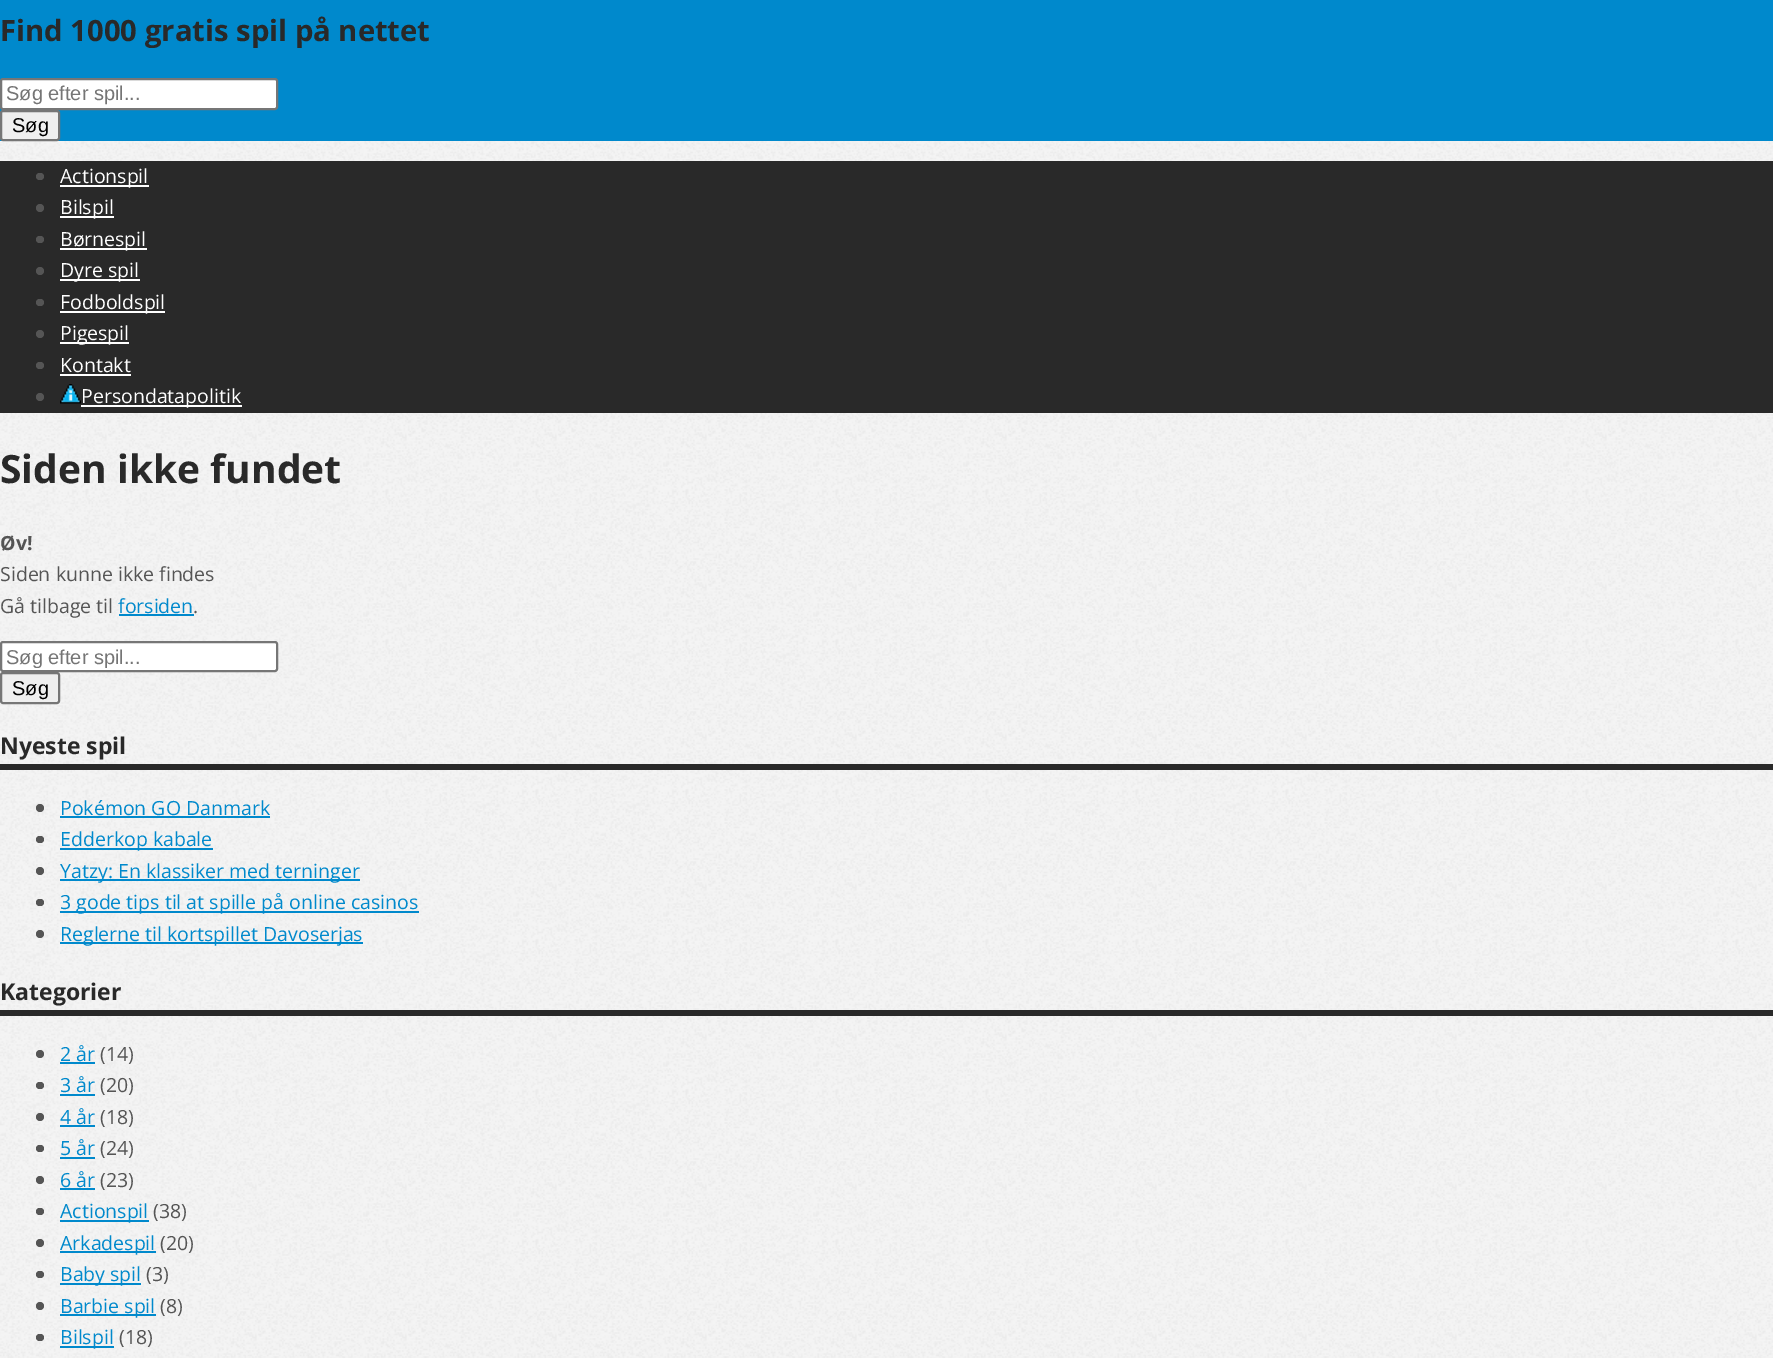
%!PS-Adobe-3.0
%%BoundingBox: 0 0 1773 1358
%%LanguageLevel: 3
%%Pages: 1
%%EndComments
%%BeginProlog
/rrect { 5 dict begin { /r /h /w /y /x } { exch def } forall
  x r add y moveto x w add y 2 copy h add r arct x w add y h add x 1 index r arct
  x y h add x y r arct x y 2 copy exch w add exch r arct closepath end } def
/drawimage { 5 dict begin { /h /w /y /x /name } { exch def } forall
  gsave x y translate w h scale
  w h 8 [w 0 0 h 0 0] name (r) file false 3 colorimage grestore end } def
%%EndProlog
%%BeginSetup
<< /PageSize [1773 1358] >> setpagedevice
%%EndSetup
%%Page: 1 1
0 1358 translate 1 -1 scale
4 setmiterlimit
1 setgray
0 0 1773 1358 rectfill
(images/1.raw) 0 141 1773 1217 drawimage
0 0.537 0.8 setrgbcolor
0 0 1773 141 rectfill
1 setgray
1 79 276 30 2 rrect gsave fill grestore
0.463 setgray
2 setlinewidth
stroke
0.937 setgray
1 111 58 29 2 rrect gsave fill grestore
0.463 setgray
stroke
0.161 setgray
0 161 1773 252 rectfill
0.333 setgray
36 173 8 7 3.5 rrect fill
1 setgray
60 185 89 2 rectfill
0.333 setgray
newpath 40 208 4 0 360 arc closepath fill
1 setgray
60 216 54 2 rectfill
0.333 setgray
36 236 8 7 3.5 rrect fill
1 setgray
60 248 87 2 rectfill
0.333 setgray
newpath 40 271 4 0 360 arc closepath fill
1 setgray
60 279 80 2 rectfill
0.333 setgray
36 299 8 7 3.5 rrect fill
1 setgray
60 311 105 2 rectfill
0.333 setgray
newpath 40 334 4 0 360 arc closepath fill
1 setgray
60 342 69 2 rectfill
0.333 setgray
36 362 8 7 3.5 rrect fill
1 setgray
60 374 71 2 rectfill
0.333 setgray
newpath 40 397 4 0 360 arc closepath fill
(images/2.raw) 60 384 21 20 drawimage
1 setgray
81 405 161 2 rectfill
0 0.537 0.8 setrgbcolor
119 614 75 2 rectfill
1 setgray
1 642 276 29 2 rrect gsave fill grestore
0.463 setgray
stroke
0.937 setgray
1 673 58 30 2 rrect gsave fill grestore
0.463 setgray
stroke
0.161 setgray
0 764 1773 6 rectfill
0.333 setgray
newpath 40 808 4 0 360 arc closepath fill
0 0.537 0.8 setrgbcolor
60 816 210 2 rectfill
0.333 setgray
36 836 8 7 3.5 rrect fill
0 0.537 0.8 setrgbcolor
60 848 153 2 rectfill
0.333 setgray
newpath 40 871 4 0 360 arc closepath fill
0 0.537 0.8 setrgbcolor
60 879 300 2 rectfill
0.333 setgray
36 899 8 7 3.5 rrect fill
0 0.537 0.8 setrgbcolor
60 911 359 2 rectfill
0.333 setgray
newpath 40 934 4 0 360 arc closepath fill
0 0.537 0.8 setrgbcolor
60 942 303 2 rectfill
0.161 setgray
0 1010 1773 6 rectfill
0.333 setgray
newpath 40 1054 4 0 360 arc closepath fill
0 0.537 0.8 setrgbcolor
60 1062 35 2 rectfill
0.333 setgray
36 1082 8 7 3.5 rrect fill
0 0.537 0.8 setrgbcolor
60 1094 35 2 rectfill
0.333 setgray
newpath 40 1117 4 0 360 arc closepath fill
0 0.537 0.8 setrgbcolor
60 1125 35 2 rectfill
0.333 setgray
36 1145 8 7 3.5 rrect fill
0 0.537 0.8 setrgbcolor
60 1157 35 2 rectfill
0.333 setgray
newpath 40 1180 4 0 360 arc closepath fill
0 0.537 0.8 setrgbcolor
60 1188 35 2 rectfill
0.333 setgray
36 1208 8 7 3.5 rrect fill
0 0.537 0.8 setrgbcolor
60 1220 89 2 rectfill
0.333 setgray
newpath 40 1243 4 0 360 arc closepath fill
0 0.537 0.8 setrgbcolor
60 1251 96 2 rectfill
0.333 setgray
36 1271 8 7 3.5 rrect fill
0 0.537 0.8 setrgbcolor
60 1283 81 2 rectfill
0.333 setgray
newpath 40 1306 4 0 360 arc closepath fill
0 0.537 0.8 setrgbcolor
60 1314 96 2 rectfill
0.333 setgray
36 1334 8 7 3.5 rrect fill
0 0.537 0.8 setrgbcolor
60 1346 54 2 rectfill
/OpenSans-Bold [29.25 0 0 -29.25 0 0] selectfont
0.161 setgray
0 41 moveto (Find 1000 gratis spil på nettet) show
/LiberationSans-Regular [20 0 0 -20 0 0] selectfont
0.459 setgray
6 100 moveto (Søg efter spil...) show
0 setgray
12 132 moveto (Søg) show
/OpenSans-Regular [19.5 0 0 -19.5 0 0] selectfont
1 setgray
60 183 moveto (Actionspil) show
60 214 moveto (Bilspil) show
60 246 moveto (Børnespil) show
60 277 moveto (Dyre spil) show
60 309 moveto (Fodboldspil) show
60 340 moveto (Pigespil) show
60 372 moveto (Kontakt) show
81 403 moveto (Persondatapolitik) show
/OpenSans-Bold [39 0 0 -39 0 0] selectfont
0.161 setgray
0 483 moveto (Siden ikke fundet) show
/OpenSans-Bold [19.5 0 0 -19.5 0 0] selectfont
0.333 setgray
0 550 moveto (Øv!) show
/OpenSans-Regular [19.5 0 0 -19.5 0 0] selectfont
0 581 moveto (Siden kunne ikke findes) show
0 613 moveto (Gå tilbage til) show
0 0.537 0.8 setrgbcolor
118 613 moveto (forsiden) show
0.333 setgray
193 613 moveto (.) show
gsave
6 645 266 23 rectclip
/LiberationSans-Regular [20 0 0 -20 0 0] selectfont
0.459 setgray
6 664 moveto (Søg efter spil...) show
grestore
/LiberationSans-Regular [20 0 0 -20 0 0] selectfont
0 setgray
12 695 moveto (Søg) show
/OpenSans-Bold [23 0 0 -23 0 0] selectfont
0.161 setgray
0 754 moveto (Nyeste spil) show
/OpenSans-Regular [19.5 0 0 -19.5 0 0] selectfont
0 0.537 0.8 setrgbcolor
60 815 moveto (Pokémon GO Danmark) show
60 846 moveto (Edderkop kabale) show
60 878 moveto (Yatzy: En klassiker med terninger) show
60 909 moveto (3 gode tips til at spille på online casinos) show
60 941 moveto (Reglerne til kortspillet Davoserjas) show
/OpenSans-Bold [23 0 0 -23 0 0] selectfont
0.161 setgray
0 1000 moveto (Kategorier) show
/OpenSans-Regular [19.5 0 0 -19.5 0 0] selectfont
0 0.537 0.8 setrgbcolor
60 1061 moveto (2 år) show
0.333 setgray
100 1061 moveto (\(14\)) show
0 0.537 0.8 setrgbcolor
60 1092 moveto (3 år) show
0.333 setgray
100 1092 moveto (\(20\)) show
0 0.537 0.8 setrgbcolor
60 1124 moveto (4 år) show
0.333 setgray
100 1124 moveto (\(18\)) show
0 0.537 0.8 setrgbcolor
60 1155 moveto (5 år) show
0.333 setgray
100 1155 moveto (\(24\)) show
0 0.537 0.8 setrgbcolor
60 1187 moveto (6 år) show
0.333 setgray
100 1187 moveto (\(23\)) show
0 0.537 0.8 setrgbcolor
60 1218 moveto (Actionspil) show
0.333 setgray
153 1218 moveto (\(38\)) show
0 0.537 0.8 setrgbcolor
60 1250 moveto (Arkadespil) show
0.333 setgray
160 1250 moveto (\(20\)) show
0 0.537 0.8 setrgbcolor
60 1281 moveto (Baby spil) show
0.333 setgray
146 1281 moveto (\(3\)) show
0 0.537 0.8 setrgbcolor
60 1313 moveto (Barbie spil) show
0.333 setgray
160 1313 moveto (\(8\)) show
0 0.537 0.8 setrgbcolor
60 1344 moveto (Bilspil) show
0.333 setgray
119 1344 moveto (\(18\)) show
showpage
%%EOF
